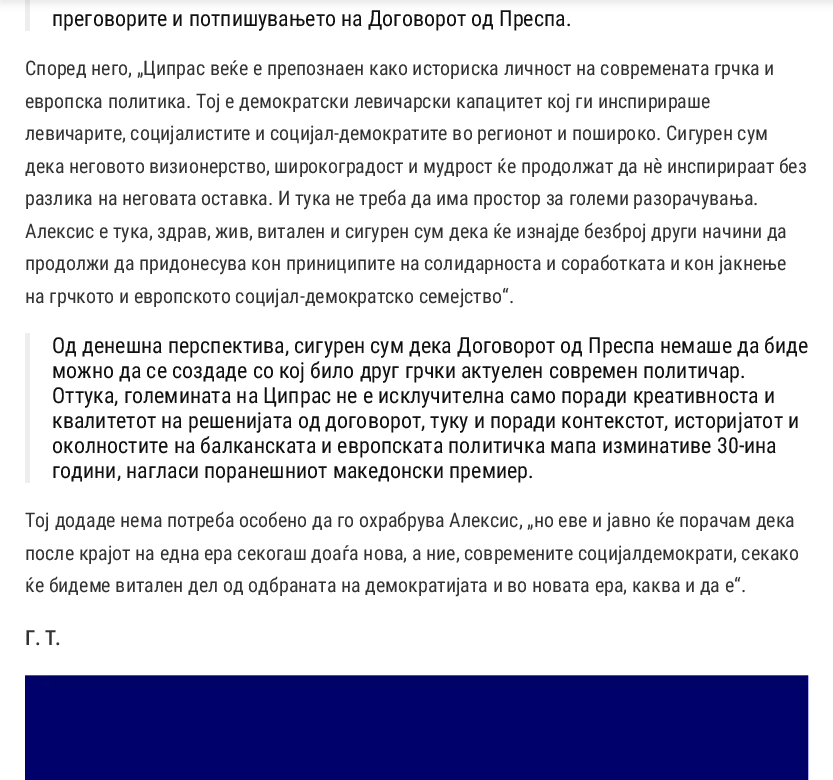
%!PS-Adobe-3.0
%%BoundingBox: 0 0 833 780
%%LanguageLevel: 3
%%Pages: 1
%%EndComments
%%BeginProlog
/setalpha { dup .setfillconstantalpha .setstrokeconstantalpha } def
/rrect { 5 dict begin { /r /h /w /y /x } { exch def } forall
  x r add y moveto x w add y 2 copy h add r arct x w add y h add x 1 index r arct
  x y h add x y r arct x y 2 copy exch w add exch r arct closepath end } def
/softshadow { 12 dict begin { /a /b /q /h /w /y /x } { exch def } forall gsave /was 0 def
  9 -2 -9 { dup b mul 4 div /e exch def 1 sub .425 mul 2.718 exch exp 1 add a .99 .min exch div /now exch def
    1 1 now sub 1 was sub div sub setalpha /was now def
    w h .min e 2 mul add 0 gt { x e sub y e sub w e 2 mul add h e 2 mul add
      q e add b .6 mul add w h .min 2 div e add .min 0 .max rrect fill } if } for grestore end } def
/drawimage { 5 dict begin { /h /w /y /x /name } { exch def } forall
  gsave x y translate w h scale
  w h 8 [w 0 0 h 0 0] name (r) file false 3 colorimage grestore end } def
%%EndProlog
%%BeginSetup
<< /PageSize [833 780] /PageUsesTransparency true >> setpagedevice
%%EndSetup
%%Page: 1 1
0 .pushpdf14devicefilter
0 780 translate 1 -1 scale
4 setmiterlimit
1 setgray
0 0 833 780 rectfill
0.933 setgray
25 0 5 31 rectfill
0 setgray
0 -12 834 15 0 4 0.1 softshadow
0.933 setgray
25 333 5 150 rectfill
(images/1.raw) 25 675 784 105 drawimage
/RobotoCondensed-Regular [22 0 0 -22 0 0] selectfont
0.067 setgray
52 26 moveto (преговорите и потпишувањето на Договорот од Преспа.) show
/RobotoCondensed-Regular [20 0 0 -20 0 0] selectfont
0.2 setgray
25 75 moveto (Според него, „Ципрас веќе е препознаен како историска личност на современата грчка и) show
25 108 moveto (европска политика. Тој е демократски левичарски капацитет кој ги инспирираше) show
25 140 moveto (левичарите, социјалистите и социјал-демократите во регионот и пошироко. Сигурен сум) show
25 173 moveto (дека неговото визионерство, широкоградост и мудрост ќе продолжат да нѐ инспирираат без) show
25 205 moveto (разлика на неговата оставка. И тука не треба да има простор за големи разорачувања.) show
25 238 moveto (Алексис е тука, здрав, жив, витален и сигурен сум дека ќе изнајде безброј други начини да) show
25 270 moveto (продолжи да придонесува кон приниципите на солидарноста и соработката и кон јакнење) show
25 303 moveto (на грчкото и европското социјал-демократско семејство“.) show
/RobotoCondensed-Regular [22 0 0 -22 0 0] selectfont
0.067 setgray
52 353 moveto (Од денешна перспектива, сигурен сум дека Договорот од Преспа немаше да биде) show
52 378 moveto (можно да се создаде со кој било друг грчки актуелен современ политичар.) show
52 403 moveto (Оттука, големината на Ципрас не е исклучителна само поради креативноста и) show
52 428 moveto (квалитетот на решенијата од договорот, туку и поради контекстот, историјатот и) show
52 453 moveto (околностите на балканската и европската политичка мапа изминативе 30-ина) show
52 478 moveto (години, нагласи поранешниот македонски премиер.) show
/RobotoCondensed-Regular [20 0 0 -20 0 0] selectfont
0.2 setgray
25 527 moveto (Тој додаде нема потреба особено да го охрабрува Алексис, „но еве и јавно ќе порачам дека) show
25 560 moveto (после крајот на една ера секогаш доаѓа нова, а ние, современите социјалдемократи, секако) show
25 592 moveto (ќе бидеме витален дел од одбраната на демократијата и во новата ера, каква и да е“.) show
/RobotoCondensed-Bold [20 0 0 -20 0 0] selectfont
25 645 moveto (Г. Т.) show
.poppdf14devicefilter showpage
%%EOF
